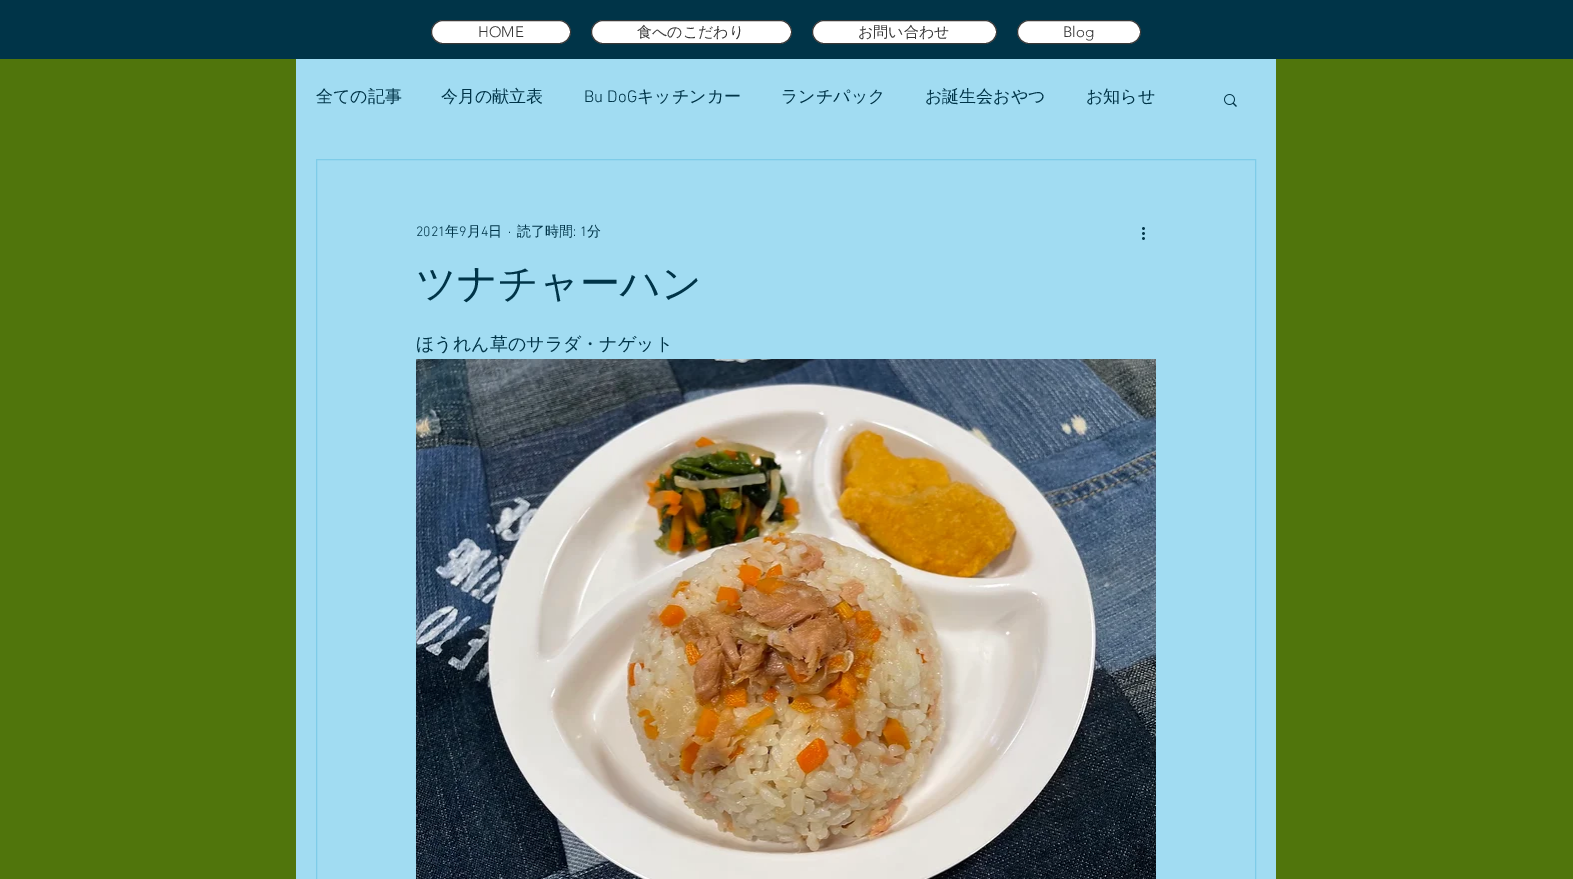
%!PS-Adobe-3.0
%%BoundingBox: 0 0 1573 879
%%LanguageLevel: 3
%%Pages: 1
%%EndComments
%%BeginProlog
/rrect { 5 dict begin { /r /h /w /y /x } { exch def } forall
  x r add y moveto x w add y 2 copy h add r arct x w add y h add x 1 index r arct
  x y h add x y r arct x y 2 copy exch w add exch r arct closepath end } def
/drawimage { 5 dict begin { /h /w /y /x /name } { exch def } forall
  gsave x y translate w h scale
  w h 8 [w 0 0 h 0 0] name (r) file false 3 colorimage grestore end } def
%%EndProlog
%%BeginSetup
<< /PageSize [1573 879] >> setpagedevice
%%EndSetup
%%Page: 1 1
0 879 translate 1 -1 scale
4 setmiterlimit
0.314 0.459 0.047 setrgbcolor
0 0 1573 879 rectfill
0 0.204 0.282 setrgbcolor
0 0 1573 59 rectfill
1 setgray
431.5 20.5 139 23 11.5 rrect gsave fill grestore
0.22 setgray
stroke
1 setgray
591.5 20.5 200 23 11.5 rrect gsave fill grestore
0.22 setgray
stroke
1 setgray
812.5 20.5 184 23 11.5 rrect gsave fill grestore
0.22 setgray
stroke
1 setgray
1017.5 20.5 123 23 11.5 rrect gsave fill grestore
0.22 setgray
stroke
0.631 0.863 0.949 setrgbcolor
296 59 980 820 rectfill
(images/1.raw) 1224 94 13 13 drawimage
0.494 0.8 0.91 setrgbcolor
316.5 159.5 939 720 rectstroke
(images/2.raw) 1142 227 3 13 drawimage
(images/3.raw) 416 359 740 520 drawimage
/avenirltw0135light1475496-Light [15 0 0 -15 0 0] selectfont
0.22 setgray
478 37 moveto (HOME) show
/WenQuanYiZenHei-Medium [15 0 0 -15 0 0] selectfont
637 37 moveto (食へのこだわり) show
858 37 moveto (お問い合わせ) show
/avenirltw0135light1475496-Light [15 0 0 -15 0 0] selectfont
1063 37 moveto (Blog) show
/WenQuanYiZenHei-Medium [17 0 0 -17 0 0] selectfont
0 0.204 0.282 setrgbcolor
316 102 moveto (全ての記事) show
441 102 moveto (今月の献立表) show
/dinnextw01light-Light [17 0 0 -17 0 0] selectfont
584 102 moveto (Bu DoG) show
/WenQuanYiZenHei-Medium [17 0 0 -17 0 0] selectfont
637 102 moveto (キッチンカー) show
781 102 moveto (ランチパック) show
925 102 moveto (お誕生会おやつ) show
1086 102 moveto (お知らせ) show
/dinnextw01light-Light [14 0 0 -14 0 0] selectfont
416 236 moveto (2021) show
/WenQuanYiZenHei-Medium [14 0 0 -14 0 0] selectfont
445 236 moveto (年) show
/dinnextw01light-Light [14 0 0 -14 0 0] selectfont
459 236 moveto (9) show
/WenQuanYiZenHei-Medium [14 0 0 -14 0 0] selectfont
467 236 moveto (月) show
/dinnextw01light-Light [14 0 0 -14 0 0] selectfont
481 236 moveto (4) show
/WenQuanYiZenHei-Medium [14 0 0 -14 0 0] selectfont
488 236 moveto (日) show
/dinnextw01light-Light [14 0 0 -14 0 0] selectfont
508 236 moveto (·) show
/WenQuanYiZenHei-Medium [14 0 0 -14 0 0] selectfont
517 236 moveto (読了時間) show
/dinnextw01light-Light [14 0 0 -14 0 0] selectfont
573 236 moveto (: 1) show
/WenQuanYiZenHei-Medium [14 0 0 -14 0 0] selectfont
587 236 moveto (分) show
/WenQuanYiZenHei-Medium [40 0 0 -40 0 0] selectfont
416 297 moveto (ツナチャーハン) show
/WenQuanYiZenHei-Medium [18 0 0 -18 0 0] selectfont
416 350 moveto (ほうれん草のサラダ・ナゲット) show
showpage
%%EOF
